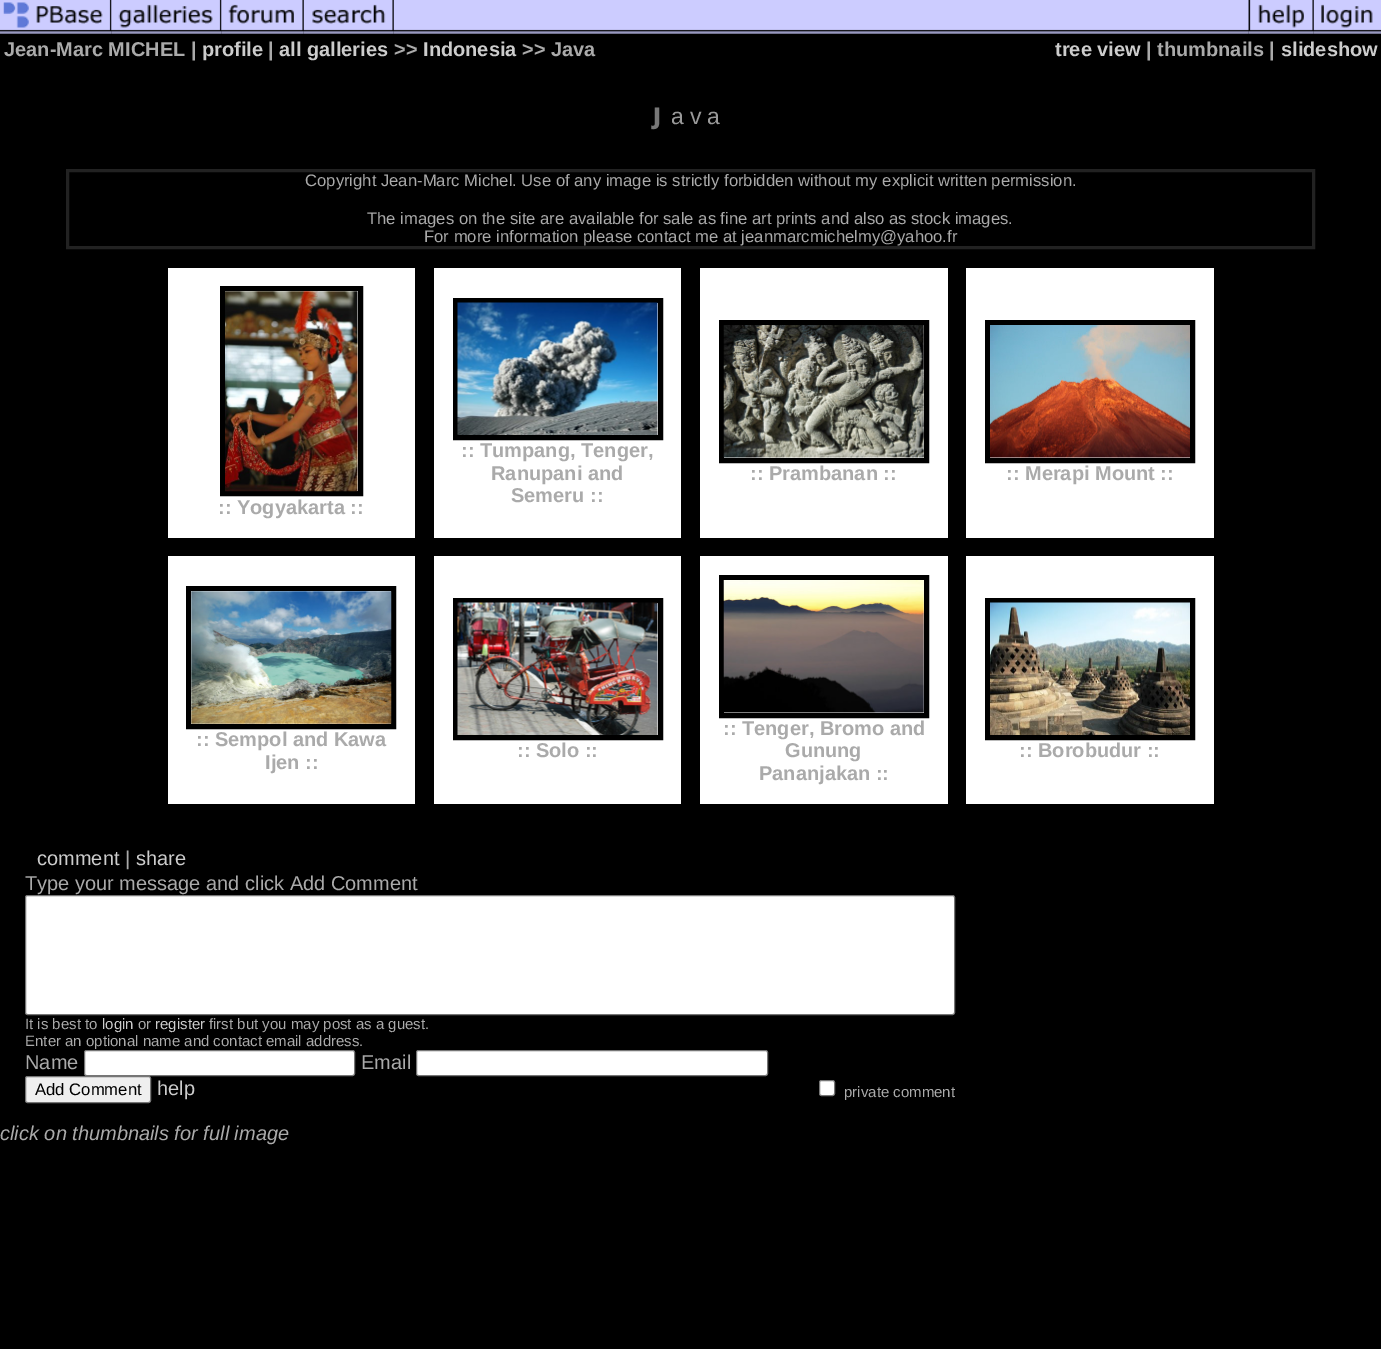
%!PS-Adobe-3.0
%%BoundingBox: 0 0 1381 1349
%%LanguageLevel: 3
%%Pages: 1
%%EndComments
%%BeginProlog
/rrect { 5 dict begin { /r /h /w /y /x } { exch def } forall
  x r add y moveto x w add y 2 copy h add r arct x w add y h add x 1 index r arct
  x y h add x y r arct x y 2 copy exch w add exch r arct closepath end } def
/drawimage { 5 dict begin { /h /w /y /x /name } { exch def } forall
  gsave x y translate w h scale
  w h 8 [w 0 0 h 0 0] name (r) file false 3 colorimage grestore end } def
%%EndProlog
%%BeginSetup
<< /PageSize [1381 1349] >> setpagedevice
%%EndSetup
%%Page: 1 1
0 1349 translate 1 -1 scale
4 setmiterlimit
0 setgray
0 0 1381 1349 rectfill
(images/1.raw) 0 0 112 34 drawimage
(images/2.raw) 111 0 111 34 drawimage
(images/3.raw) 221 0 83 34 drawimage
(images/4.raw) 303 0 91 34 drawimage
(images/5.raw) 393 0 856 34 drawimage
(images/6.raw) 1248 0 66 34 drawimage
(images/7.raw) 1313 0 68 34 drawimage
0.133 setgray
3 setlinewidth
67.5 170.5 1246 77 rectstroke
1 setgray
434 268 247 270 rectfill
0 setgray
5 setlinewidth
455.5 300.5 205 137 rectstroke
(images/8.raw) 457 302 201 133 drawimage
1 setgray
700 268 248 270 rectfill
0 setgray
721.5 322.5 205 138 rectstroke
(images/9.raw) 723 325 201 133 drawimage
1 setgray
966 268 248 270 rectfill
0 setgray
987.5 322.5 205 138 rectstroke
(images/10.raw) 990 325 200 133 drawimage
1 setgray
168 268 247 270 rectfill
0 setgray
222.5 288.5 138 205 rectstroke
(images/11.raw) 225 291 133 201 drawimage
1 setgray
168 556 247 248 rectfill
0 setgray
188.5 588.5 205 138 rectstroke
(images/12.raw) 191 591 201 133 drawimage
1 setgray
434 556 247 248 rectfill
0 setgray
455.5 600.5 205 137 rectstroke
(images/13.raw) 457 602 201 133 drawimage
1 setgray
700 556 248 248 rectfill
0 setgray
721.5 577.5 205 138 rectstroke
(images/14.raw) 723 580 201 133 drawimage
1 setgray
966 556 248 248 rectfill
0 setgray
987.5 600.5 205 137 rectstroke
(images/15.raw) 990 602 200 133 drawimage
1 setgray
25.5 895.5 929 119 2 rrect gsave fill grestore
0.463 setgray
1 setlinewidth
stroke
1 setgray
84.5 1050.5 270 25 2 rrect gsave fill grestore
0.463 setgray
stroke
1 setgray
416.5 1050.5 351 25 2 rrect gsave fill grestore
0.463 setgray
stroke
0.937 setgray
25.5 1076.5 125 26 2 rrect gsave fill grestore
0.463 setgray
stroke
1 setgray
819.5 1080.5 15 15 2 rrect gsave fill grestore
0.463 setgray
stroke
/LiberationSans-Bold [20 0 0 -20 0 0] selectfont
0.667 setgray
4 56 moveto (Jean-Marc MICHEL |) show
0.8 setgray
202 56 moveto (profile) show
0.667 setgray
268 56 moveto (|) show
0.8 setgray
279 56 moveto (all galleries) show
0.667 setgray
394 56 moveto (>>) show
0.8 setgray
423 56 moveto (Indonesia) show
0.667 setgray
522 56 moveto (>> Java) show
0.8 setgray
1055 56 moveto (tree view) show
0.667 setgray
1146 56 moveto (| thumbnails |) show
0.8 setgray
1281 56 moveto (slideshow) show
/NotoSans-Black [23 0 0 -23 0 0] selectfont
0.467 setgray
653 124 moveto 6 0 (J) ashow
/LiberationSans-Regular [23 0 0 -23 0 0] selectfont
0.6 setgray
671 124 moveto 6 0 (ava) ashow
/LiberationSans-Regular [16.65 0 0 -16.65 0 0] selectfont
0.667 setgray
305 186 moveto (Copyright Jean-Marc Michel. Use of any image is strictly forbidden without my explicit written permission.) show
367 224 moveto (The images on the site are available for sale as fine art prints and also as stock images.) show
424 242 moveto (For more information please contact me at jeanmarcmichelmy@yahoo.fr) show
/LiberationSans-Bold [20 0 0 -20 0 0] selectfont
461 457 moveto (:: Tumpang, Tenger,) show
491 480 moveto (Ranupani and) show
511 502 moveto (Semeru ::) show
750 480 moveto (:: Prambanan ::) show
1006 480 moveto (:: Merapi Mount ::) show
218 514 moveto (:: Yogyakarta ::) show
196 746 moveto (:: Sempol and Kawa) show
265 769 moveto (Ijen ::) show
517 757 moveto (:: Solo ::) show
723 735 moveto (:: Tenger, Bromo and) show
785 757 moveto (Gunung) show
759 780 moveto (Pananjakan ::) show
1019 757 moveto (:: Borobudur ::) show
/LiberationSans-Regular [20 0 0 -20 0 0] selectfont
0.8 setgray
37 865 moveto (comment) show
0.667 setgray
125 865 moveto (|) show
0.8 setgray
136 865 moveto (share) show
0.667 setgray
25 890 moveto (Type your message and click Add Comment) show
/LiberationSans-Regular [15 0 0 -15 0 0] selectfont
25 1029 moveto (It is best to) show
0.8 setgray
102 1029 moveto (login) show
0.667 setgray
138 1029 moveto (or) show
0.8 setgray
155 1029 moveto (register) show
0.667 setgray
209 1029 moveto (first but you may post as a guest.) show
25 1046 moveto (Enter an optional name and contact email address.) show
/LiberationSans-Regular [20 0 0 -20 0 0] selectfont
25 1069 moveto (Name) show
361 1069 moveto (Email) show
/LiberationSans-Regular [16.65 0 0 -16.65 0 0] selectfont
0 setgray
35 1095 moveto (Add Comment) show
/LiberationSans-Regular [20 0 0 -20 0 0] selectfont
0.8 setgray
157 1095 moveto (help) show
/LiberationSans-Regular [15 0 0 -15 0 0] selectfont
0.667 setgray
844 1097 moveto (private comment) show
/LiberationSans-Italic [20 0 0 -20 0 0] selectfont
0 1140 moveto (click on thumbnails for full image) show
showpage
%%EOF
